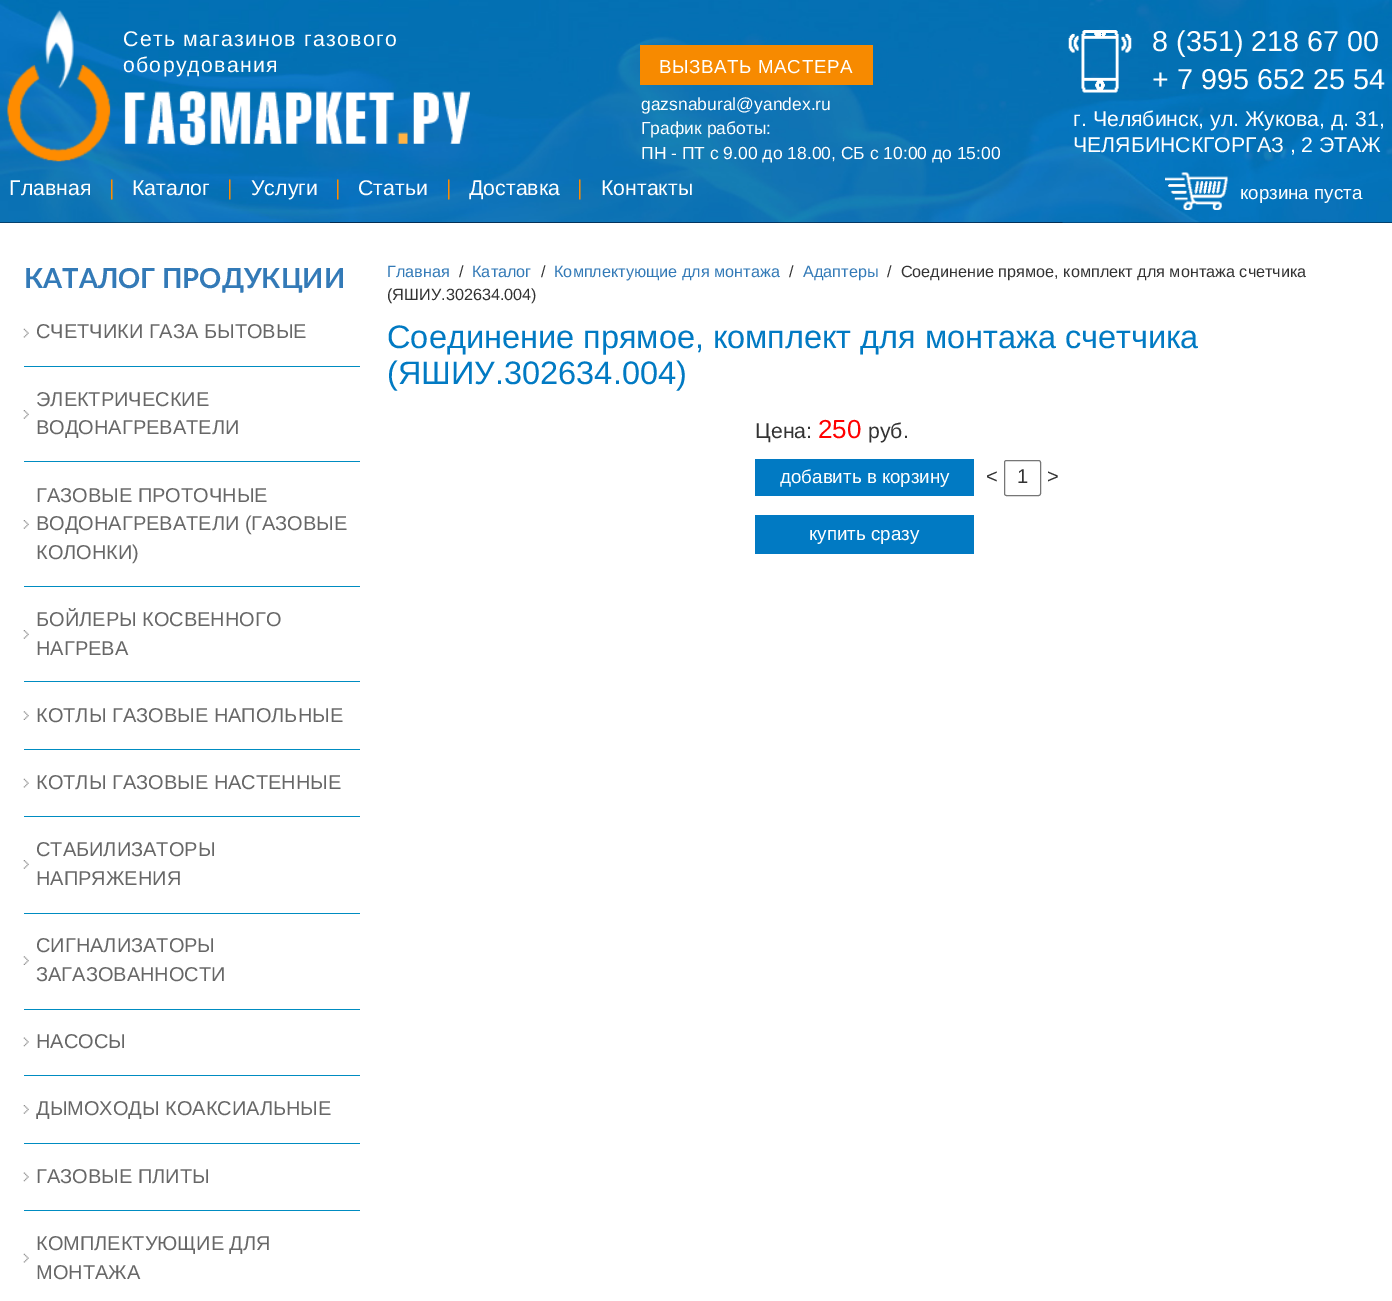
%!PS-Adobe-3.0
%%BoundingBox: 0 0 1392 1301
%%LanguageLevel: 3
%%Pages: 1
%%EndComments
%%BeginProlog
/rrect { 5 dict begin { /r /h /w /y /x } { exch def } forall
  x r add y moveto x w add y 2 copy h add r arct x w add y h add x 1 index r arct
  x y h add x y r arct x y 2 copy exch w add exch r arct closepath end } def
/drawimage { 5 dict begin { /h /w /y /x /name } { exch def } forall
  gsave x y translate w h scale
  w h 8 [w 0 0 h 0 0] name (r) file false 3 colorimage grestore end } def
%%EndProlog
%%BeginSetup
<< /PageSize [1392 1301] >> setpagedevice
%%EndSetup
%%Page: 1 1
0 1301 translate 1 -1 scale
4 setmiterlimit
1 setgray
0 0 1392 1301 rectfill
(images/1.raw) 0 0 1392 223 drawimage
(images/2.raw) 7 10 463 152 drawimage
(images/3.raw) 1068 30 64 63 drawimage
0.969 0.541 0 setrgbcolor
640 45 233 40 rectfill
(images/4.raw) 1165 172 63 38 drawimage
0 0.549 0.757 setrgbcolor
24 366 336 1 rectfill
(images/5.raw) 23 328 6 10 drawimage
24 461 336 1 rectfill
(images/6.raw) 23 410 6 9 drawimage
24 586 336 1 rectfill
(images/6.raw) 23 520 6 9 drawimage
24 681 336 1 rectfill
(images/6.raw) 23 630 6 9 drawimage
24 749 336 1 rectfill
(images/7.raw) 23 711 6 9 drawimage
24 816 336 1 rectfill
(images/8.raw) 23 778 6 10 drawimage
24 913 336 1 rectfill
(images/6.raw) 23 860 6 9 drawimage
24 1009 336 1 rectfill
(images/7.raw) 23 956 6 9 drawimage
24 1075 336 1 rectfill
(images/9.raw) 23 1037 6 10 drawimage
24 1143 336 1 rectfill
(images/6.raw) 23 1105 6 9 drawimage
24 1210 336 1 rectfill
(images/10.raw) 23 1172 6 10 drawimage
(images/5.raw) 23 1253 6 10 drawimage
0.004 0.478 0.765 setrgbcolor
755 459 219 37 rectfill
0.463 setgray
1004.5 460.5 36 35 2 rrect stroke
0.004 0.478 0.765 setrgbcolor
755 515 219 39 rectfill
(images/11.raw) 0 222 1063 1 drawimage
(images/12.raw) 330 222 1062 1 drawimage
/LiberationSans-Regular [28.75 0 0 -28.75 0 0] selectfont
1 setgray
1152 51 moveto (8 \(351\) 218 67 00) show
1152 89 moveto (+ 7 995 652 25 54) show
/LiberationSans-Regular [21.25 0 0 -21.25 0 0] selectfont
123 46 moveto 1.25 0 (Сеть магазинов газового) ashow
123 72 moveto 1.25 0 (оборудования) ashow
/LiberationSans-Regular [18.75 0 0 -18.75 0 0] selectfont
659 73 moveto 0.6 0 (ВЫЗВАТЬ МАСТЕРА) ashow
/LiberationSans-Regular [17.5 0 0 -17.5 0 0] selectfont
641 110 moveto (gazsnabural@yandex.ru) show
641 134 moveto (График работы:) show
641 159 moveto (ПН - ПТ с 9.00 до 18.00, СБ с 10:00 до 15:00) show
/LiberationSans-Regular [21.25 0 0 -21.25 0 0] selectfont
1073 126 moveto (г. Челябинск, ул. Жукова, д. 31,) show
1073 152 moveto (ЧЕЛЯБИНСКГОРГАЗ , 2 ЭТАЖ) show
9 195 moveto (Главная) show
1 0.549 0 setrgbcolor
109 195 moveto (|) show
1 setgray
132 195 moveto (Каталог) show
1 0.549 0 setrgbcolor
227 195 moveto (|) show
1 setgray
251 195 moveto (Услуги) show
1 0.549 0 setrgbcolor
335 195 moveto (|) show
1 setgray
358 195 moveto (Статьи) show
1 0.549 0 setrgbcolor
446 195 moveto (|) show
1 setgray
469 195 moveto (Доставка) show
1 0.549 0 setrgbcolor
577 195 moveto (|) show
1 setgray
601 195 moveto (Контакты) show
/LiberationSans-Regular [18.75 0 0 -18.75 0 0] selectfont
1240 199 moveto (корзина пуста) show
/Lato-Bold [27.5 0 0 -27.5 0 0] selectfont
0.2 0.478 0.718 setrgbcolor
24 288 moveto (КАТАЛОГ ПРОДУКЦИИ) show
/LiberationSans-Regular [20 0 0 -20 0 0] selectfont
0.404 setgray
36 338 moveto (СЧЕТЧИКИ ГАЗА БЫТОВЫЕ) show
36 406 moveto (ЭЛЕКТРИЧЕСКИЕ) show
36 434 moveto (ВОДОНАГРЕВАТЕЛИ) show
36 502 moveto (ГАЗОВЫЕ ПРОТОЧНЫЕ) show
36 530 moveto (ВОДОНАГРЕВАТЕЛИ \(ГАЗОВЫЕ) show
36 559 moveto (КОЛОНКИ\)) show
36 626 moveto (БОЙЛЕРЫ КОСВЕННОГО) show
36 655 moveto (НАГРЕВА) show
36 722 moveto (КОТЛЫ ГАЗОВЫЕ НАПОЛЬНЫЕ) show
36 789 moveto (КОТЛЫ ГАЗОВЫЕ НАСТЕННЫЕ) show
36 856 moveto (СТАБИЛИЗАТОРЫ) show
36 885 moveto (НАПРЯЖЕНИЯ) show
36 952 moveto (СИГНАЛИЗАТОРЫ) show
36 981 moveto (ЗАГАЗОВАННОСТИ) show
36 1048 moveto (НАСОСЫ) show
36 1115 moveto (ДЫМОХОДЫ КОАКСИАЛЬНЫЕ) show
36 1183 moveto (ГАЗОВЫЕ ПЛИТЫ) show
36 1250 moveto (КОМПЛЕКТУЮЩИЕ ДЛЯ) show
36 1279 moveto (МОНТАЖА) show
/LiberationSans-Regular [16.25 0 0 -16.25 0 0] selectfont
0.2 0.478 0.718 setrgbcolor
387 277 moveto (Главная) show
0.2 setgray
459 277 moveto (/) show
0.2 0.478 0.718 setrgbcolor
472 277 moveto (Каталог) show
0.2 setgray
541 277 moveto (/) show
0.2 0.478 0.718 setrgbcolor
554 277 moveto (Комплектующие для монтажа) show
0.2 setgray
789 277 moveto (/) show
0.2 0.478 0.718 setrgbcolor
803 277 moveto (Адаптеры) show
0.2 setgray
887 277 moveto (/  Соединение прямое, комплект для монтажа счетчика) show
387 300 moveto (\(ЯШИУ.302634.004\)) show
/LiberationSans-Regular [32.5 0 0 -32.5 0 0] selectfont
0.004 0.478 0.765 setrgbcolor
387 348 moveto (Соединение прямое, комплект для монтажа счетчика) show
387 384 moveto (\(ЯШИУ.302634.004\)) show
/LiberationSans-Regular [21.25 0 0 -21.25 0 0] selectfont
0.2 setgray
755 438 moveto (Цена:) show
/LiberationSans-Regular [26 0 0 -26 0 0] selectfont
1 0 0 setrgbcolor
818 438 moveto (250) show
/LiberationSans-Regular [21.25 0 0 -21.25 0 0] selectfont
0.2 setgray
868 438 moveto (руб.) show
/LiberationSans-Regular [18.75 0 0 -18.75 0 0] selectfont
1 setgray
780 483 moveto (добавить в корзину) show
/LiberationSans-Regular [20 0 0 -20 0 0] selectfont
0.2 setgray
986 483 moveto (<) show
1017 483 moveto (1) show
1047 483 moveto (>) show
/LiberationSans-Regular [18.75 0 0 -18.75 0 0] selectfont
1 setgray
809 540 moveto (купить сразу) show
showpage
%%EOF
